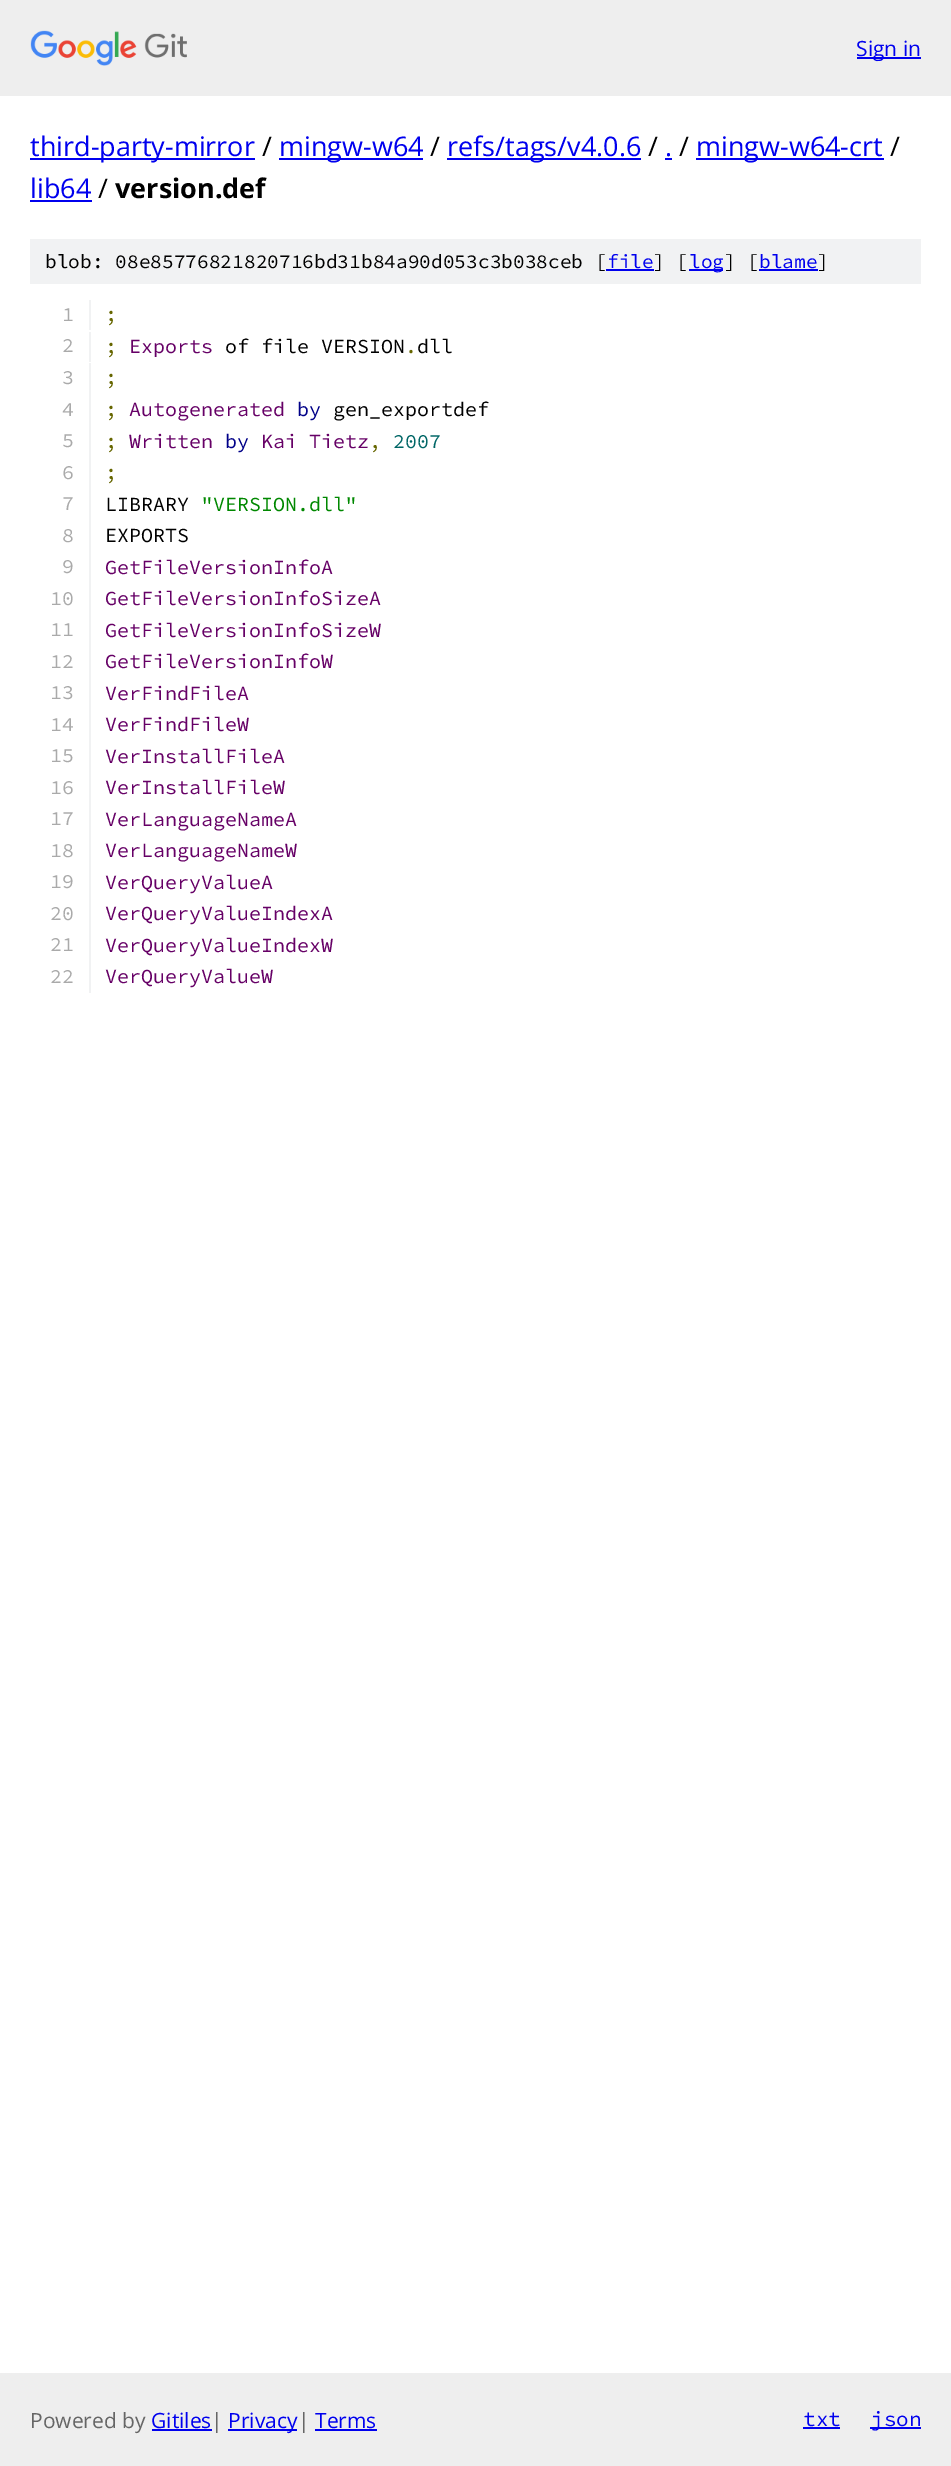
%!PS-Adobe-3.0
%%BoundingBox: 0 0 951 2466
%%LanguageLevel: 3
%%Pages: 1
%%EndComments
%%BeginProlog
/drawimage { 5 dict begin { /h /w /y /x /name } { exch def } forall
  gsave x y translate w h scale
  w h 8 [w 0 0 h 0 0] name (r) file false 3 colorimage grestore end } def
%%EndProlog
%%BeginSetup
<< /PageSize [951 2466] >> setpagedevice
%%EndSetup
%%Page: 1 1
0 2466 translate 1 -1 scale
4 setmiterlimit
1 setgray
0 0 951 2466 rectfill
0.933 setgray
0 0 951 96 rectfill
(images/1.raw) 30 30 157 36 drawimage
0 0 0.933 setrgbcolor
857 57 64 2 rectfill
30 158 225 2 rectfill
279 158 144 2 rectfill
447 158 194 2 rectfill
665 158 7 2 rectfill
696 158 188 2 rectfill
30 200 62 2 rectfill
0.945 0.949 0.953 setrgbcolor
30 239 891 45 rectfill
0 0 0.933 setrgbcolor
606 269 48 2 rectfill
689 269 34 2 rectfill
759 269 59 2 rectfill
0.945 0.949 0.953 setrgbcolor
89 300 2 30 rectfill
89 332 2 30 rectfill
89 363 2 630 rectfill
0.933 setgray
0 2373 951 93 rectfill
0 0 0.933 setrgbcolor
152 2429 60 2 rectfill
228 2429 69 2 rectfill
315 2429 62 2 rectfill
803 2427 37 2 rectfill
870 2427 51 2 rectfill
/OpenSans-Regular [21 0 0 -21 0 0] selectfont
856 56 moveto (Sign in) show
/OpenSans-Regular [27 0 0 -27 0 0] selectfont
30 156 moveto (third-party-mirror) show
0 setgray
262 156 moveto (/) show
0 0 0.933 setrgbcolor
279 156 moveto (mingw-w64) show
0 setgray
430 156 moveto (/) show
0 0 0.933 setrgbcolor
447 156 moveto (refs/tags/v4.0.6) show
0 setgray
648 156 moveto (/) show
0 0 0.933 setrgbcolor
665 156 moveto (.) show
0 setgray
679 156 moveto (/) show
0 0 0.933 setrgbcolor
696 156 moveto (mingw-w64-crt) show
0 setgray
890 156 moveto (/) show
0 0 0.933 setrgbcolor
30 198 moveto (lib64) show
0 setgray
98 198 moveto (/) show
/OpenSans-Bold [27 0 0 -27 0 0] selectfont
115 198 moveto (version.def) show
/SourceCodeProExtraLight-ExtraLight [19.5 0 0 -19.5 0 0] selectfont
45 268 moveto (blob: 08e85776821820716bd31b84a90d053c3b038ceb [) show
0 0 0.933 setrgbcolor
607 268 moveto (file) show
0 setgray
653 268 moveto (] [) show
0 0 0.933 setrgbcolor
689 268 moveto (log) show
0 setgray
724 268 moveto (] [) show
0 0 0.933 setrgbcolor
759 268 moveto (blame) show
0 setgray
817 268 moveto (]) show
/SourceCodeProExtraLight-ExtraLight [20 0 0 -20 0 0] selectfont
0.667 setgray
62 321 moveto (1) show
0.4 0.4 0 setrgbcolor
105 321 moveto (;) show
0.667 setgray
62 352 moveto (2) show
0.4 0.4 0 setrgbcolor
105 353 moveto (;) show
0.4 0 0.4 setrgbcolor
129 353 moveto (Exports) show
0 setgray
225 353 moveto (of file VERSION dll) show
0.4 0.4 0 setrgbcolor
405 353 moveto (.) show
0.667 setgray
62 384 moveto (3) show
0.4 0.4 0 setrgbcolor
105 384 moveto (;) show
0.667 setgray
62 416 moveto (4) show
0.4 0.4 0 setrgbcolor
105 416 moveto (;) show
0.4 0 0.4 setrgbcolor
129 416 moveto (Autogenerated) show
0 0 0.533 setrgbcolor
297 416 moveto (by) show
0 setgray
333 416 moveto (gen_exportdef) show
0.667 setgray
62 447 moveto (5) show
0.4 0.4 0 setrgbcolor
105 448 moveto (;) show
0.4 0 0.4 setrgbcolor
129 448 moveto (Written) show
0 0 0.533 setrgbcolor
225 448 moveto (by) show
0.4 0 0.4 setrgbcolor
261 448 moveto (Kai Tietz) show
0.4 0.4 0 setrgbcolor
369 448 moveto (,) show
0 0.4 0.4 setrgbcolor
393 448 moveto (2007) show
0.667 setgray
62 479 moveto (6) show
0.4 0.4 0 setrgbcolor
105 479 moveto (;) show
0.667 setgray
62 510 moveto (7) show
0 setgray
105 511 moveto (LIBRARY) show
0 0.533 0 setrgbcolor
201 511 moveto ("VERSION.dll") show
0.667 setgray
62 542 moveto (8) show
0 setgray
105 542 moveto (EXPORTS) show
0.667 setgray
62 573 moveto (9) show
0.4 0 0.4 setrgbcolor
105 574 moveto (GetFileVersionInfoA) show
0.667 setgray
50 605 moveto (10) show
0.4 0 0.4 setrgbcolor
105 605 moveto (GetFileVersionInfoSizeA) show
0.667 setgray
50 636 moveto (11) show
0.4 0 0.4 setrgbcolor
105 637 moveto (GetFileVersionInfoSizeW) show
0.667 setgray
50 668 moveto (12) show
0.4 0 0.4 setrgbcolor
105 668 moveto (GetFileVersionInfoW) show
0.667 setgray
50 699 moveto (13) show
0.4 0 0.4 setrgbcolor
105 700 moveto (VerFindFileA) show
0.667 setgray
50 731 moveto (14) show
0.4 0 0.4 setrgbcolor
105 731 moveto (VerFindFileW) show
0.667 setgray
50 762 moveto (15) show
0.4 0 0.4 setrgbcolor
105 763 moveto (VerInstallFileA) show
0.667 setgray
50 794 moveto (16) show
0.4 0 0.4 setrgbcolor
105 794 moveto (VerInstallFileW) show
0.667 setgray
50 825 moveto (17) show
0.4 0 0.4 setrgbcolor
105 826 moveto (VerLanguageNameA) show
0.667 setgray
50 857 moveto (18) show
0.4 0 0.4 setrgbcolor
105 857 moveto (VerLanguageNameW) show
0.667 setgray
50 888 moveto (19) show
0.4 0 0.4 setrgbcolor
105 889 moveto (VerQueryValueA) show
0.667 setgray
50 920 moveto (20) show
0.4 0 0.4 setrgbcolor
105 920 moveto (VerQueryValueIndexA) show
0.667 setgray
50 951 moveto (21) show
0.4 0 0.4 setrgbcolor
105 952 moveto (VerQueryValueIndexW) show
0.667 setgray
50 983 moveto (22) show
0.4 0 0.4 setrgbcolor
105 983 moveto (VerQueryValueW) show
/OpenSans-Regular [21 0 0 -21 0 0] selectfont
0.4 setgray
30 2428 moveto (Powered by) show
0 0 0.933 setrgbcolor
151 2428 moveto (Gitiles) show
0.4 setgray
211 2428 moveto (|) show
0 0 0.933 setrgbcolor
228 2428 moveto (Privacy) show
0.4 setgray
298 2428 moveto (|) show
0 0 0.933 setrgbcolor
315 2428 moveto (Terms) show
/SourceCodeProExtraLight-ExtraLight [21 0 0 -21 0 0] selectfont
803 2426 moveto (txt) show
871 2426 moveto (json) show
showpage
%%EOF
